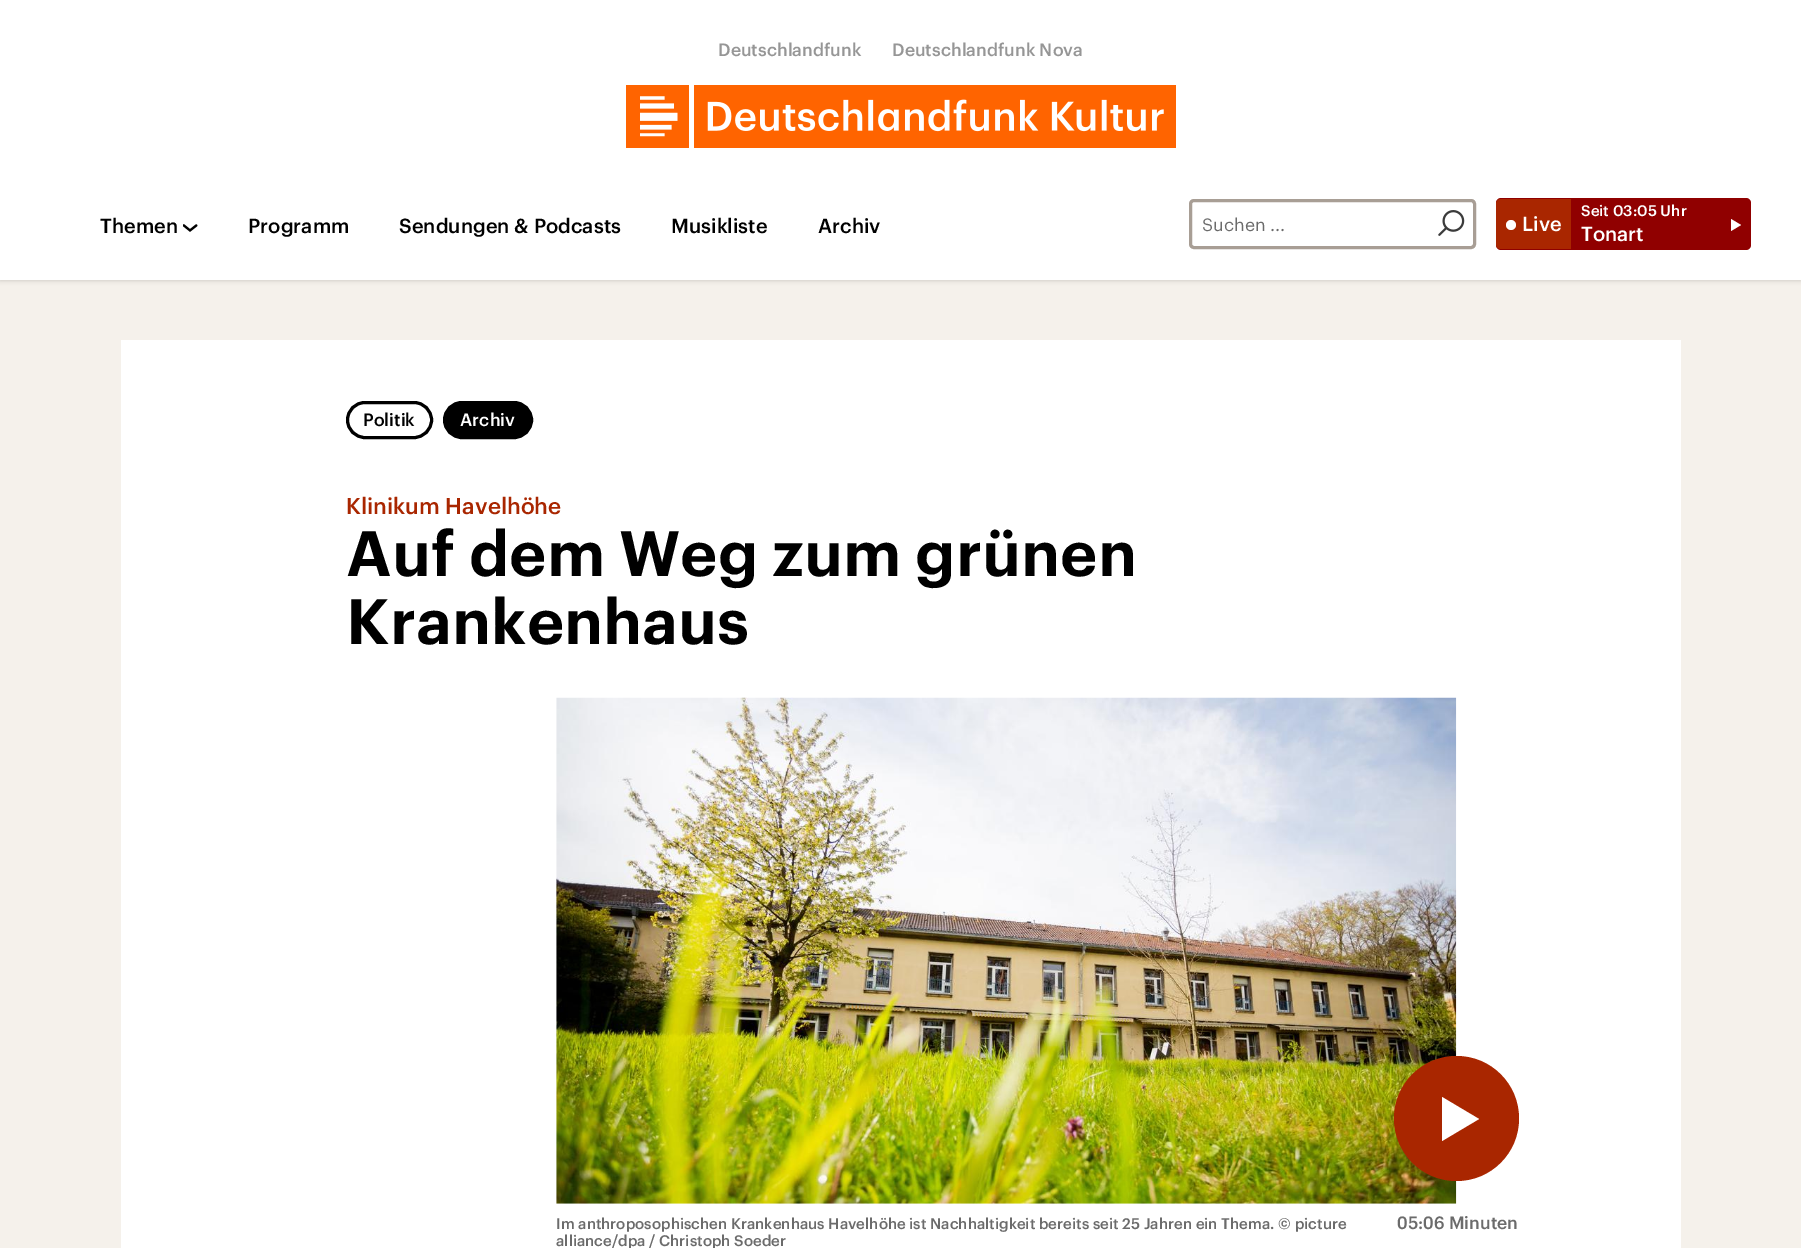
%!PS-Adobe-3.0
%%BoundingBox: 0 0 1801 1248
%%LanguageLevel: 3
%%Pages: 1
%%EndComments
%%BeginProlog
/setalpha { dup .setfillconstantalpha .setstrokeconstantalpha } def
/rrect { 5 dict begin { /r /h /w /y /x } { exch def } forall
  x r add y moveto x w add y 2 copy h add r arct x w add y h add x 1 index r arct
  x y h add x y r arct x y 2 copy exch w add exch r arct closepath end } def
/softshadow { 12 dict begin { /a /b /q /h /w /y /x } { exch def } forall gsave /was 0 def
  9 -2 -9 { dup b mul 4 div /e exch def 1 sub .425 mul 2.718 exch exp 1 add a .99 .min exch div /now exch def
    1 1 now sub 1 was sub div sub setalpha /was now def
    w h .min e 2 mul add 0 gt { x e sub y e sub w e 2 mul add h e 2 mul add
      q e add b .6 mul add w h .min 2 div e add .min 0 .max rrect fill } if } for grestore end } def
/drawimage { 5 dict begin { /h /w /y /x /name } { exch def } forall
  gsave x y translate w h scale
  w h 8 [w 0 0 h 0 0] name (r) file false 3 colorimage grestore end } def
%%EndProlog
%%BeginSetup
<< /PageSize [1801 1248] /PageUsesTransparency true >> setpagedevice
%%EndSetup
%%Page: 1 1
0 .pushpdf14devicefilter
0 1248 translate 1 -1 scale
4 setmiterlimit
0.961 0.945 0.922 setrgbcolor
0 0 1801 1248 rectfill
0 setgray
0 0 1801 280 0 2.5 0.2 softshadow
1 setgray
0 0 1801 280 rectfill
(images/1.raw) 626 85 550 63 drawimage
(images/2.raw) 183 224 15 8 drawimage
0.659 0.62 0.584 setrgbcolor
3 setlinewidth
1190.5 200.5 284 47 3.5 rrect stroke
(images/3.raw) 1438 210 27 26 drawimage
0.565 0 0 setrgbcolor
1496 198 255 52 5 rrect fill
0.663 0.149 0 setrgbcolor
newpath 1501 199 moveto 1571 199 lineto 1571 249 lineto 1501 249 lineto 1498 249 1496 247 1496 244 curveto 1496 204 lineto 1496 201 1498 199 1501 199 curveto closepath fill
1 setgray
newpath 1511 225 5 0 360 arc closepath fill
newpath 1731 231 moveto 1731 219 lineto 1741 225 lineto closepath fill
121 340 1560 908 rectfill
0 setgray
347.5 402.5 84 35 17.5 rrect stroke
444.5 402.5 87 35 17.5 rrect gsave fill grestore
stroke
(images/4.raw) 556 697 901 507 drawimage
0.663 0.149 0 setrgbcolor
newpath 1456.5 1118.5 62.5 0 360 arc closepath fill
1 setgray
newpath 1442 1141 moveto 1442 1097 lineto 1479 1119 lineto closepath fill
/Graphik-Medium [17.5 0 0 -17.5 0 0] selectfont
0.588 setgray
718 56 moveto (Deutschlandfunk) show
892 56 moveto (Deutschlandfunk Nova) show
/Graphik-Medium [20 0 0 -20 0 0] selectfont
0 setgray
100 233 moveto (Themen) show
248 233 moveto (Programm) show
399 233 moveto (Sendungen & Podcasts) show
671 233 moveto (Musikliste) show
818 233 moveto (Archiv) show
/Graphik-Regular [17.5 0 0 -17.5 0 0] selectfont
0.42 setgray
1202 231 moveto (Suchen ...) show
/Graphik-Medium [20 0 0 -20 0 0] selectfont
1 setgray
1522 231 moveto (Live) show
/Graphik-Medium [15 0 0 -15 0 0] selectfont
1581 216 moveto (Seit 03:05 Uhr) show
/Graphik-Medium [20 0 0 -20 0 0] selectfont
1581 241 moveto (Tonart) show
/Graphik-Medium [17.5 0 0 -17.5 0 0] selectfont
0 setgray
363 426 moveto (Politik) show
1 setgray
460 426 moveto (Archiv) show
/Graphik-Medium [22.5 0 0 -22.5 0 0] selectfont
0.663 0.149 0 setrgbcolor
346 514 moveto (Klinikum Havelhöhe) show
/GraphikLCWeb-SemiBold [62.5 0 0 -62.5 0 0] selectfont
0 setgray
346 576 moveto (Auf dem Weg zum grünen) show
346 644 moveto (Krankenhaus) show
/Graphik-Medium [15 0 0 -15 0 0] selectfont
0.42 setgray
556 1229 moveto (Im anthroposophischen Krankenhaus Havelhöhe ist Nachhaltigkeit bereits seit 25 Jahren ein Thema. © picture) show
556 1246 moveto (alliance/dpa / Christoph Soeder) show
/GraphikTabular-Medium [17.5 0 0 -17.5 0 0] selectfont
1397 1229 moveto (05:06 Minuten) show
.poppdf14devicefilter showpage
%%EOF
